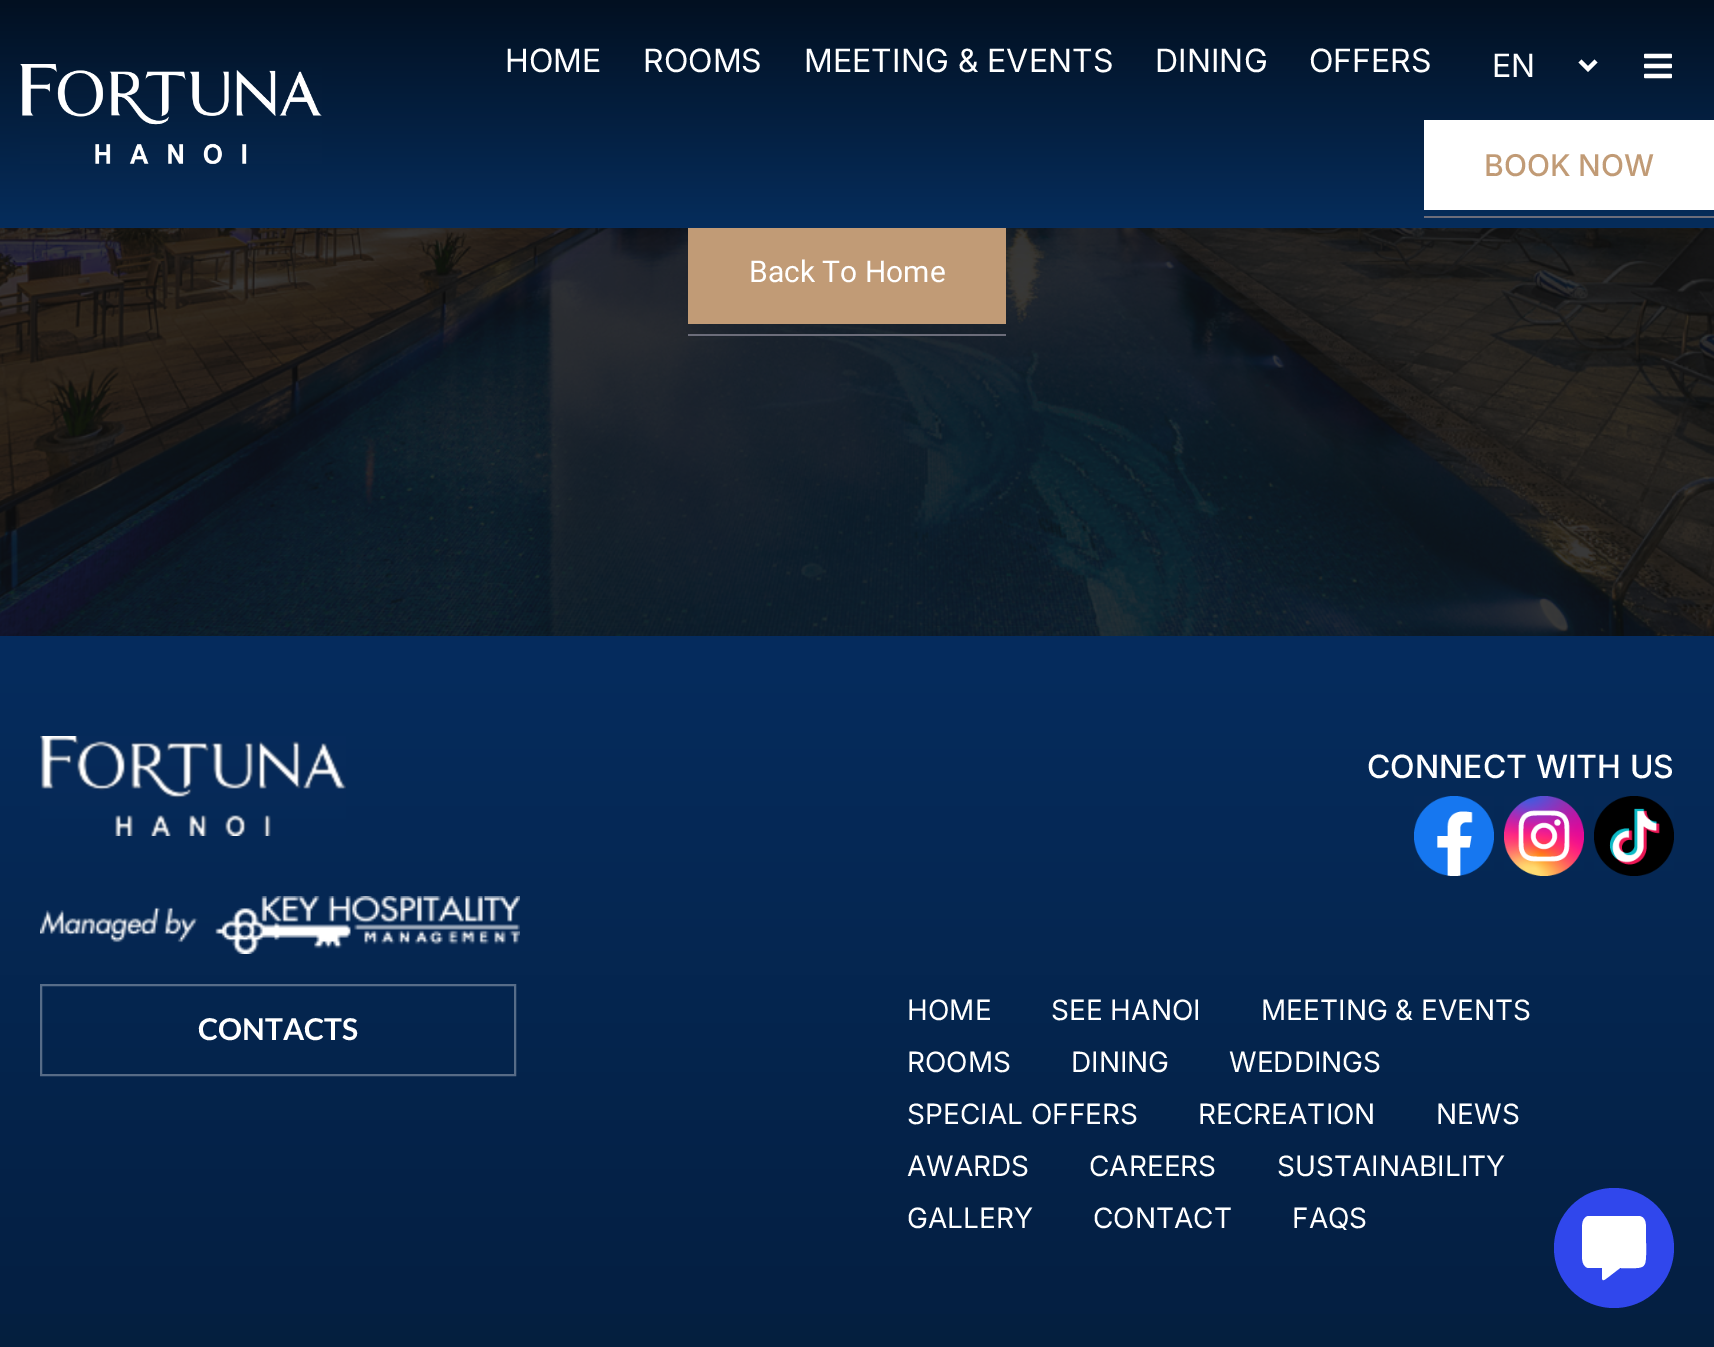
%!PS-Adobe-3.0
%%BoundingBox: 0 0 1714 1347
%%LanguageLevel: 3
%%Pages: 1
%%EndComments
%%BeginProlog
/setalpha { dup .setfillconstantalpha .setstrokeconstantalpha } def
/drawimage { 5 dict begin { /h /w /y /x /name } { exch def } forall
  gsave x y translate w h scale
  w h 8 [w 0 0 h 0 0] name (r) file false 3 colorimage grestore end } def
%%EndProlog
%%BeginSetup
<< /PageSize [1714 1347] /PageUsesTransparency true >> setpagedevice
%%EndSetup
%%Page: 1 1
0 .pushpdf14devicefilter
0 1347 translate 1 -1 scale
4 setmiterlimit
1 setgray
0 0 1714 1347 rectfill
gsave newpath 0 0 moveto 1714 0 lineto 1714 228 lineto 0 228 lineto closepath clip newpath
<< /ShadingType 2 /ColorSpace /DeviceRGB /Coords [857 0 857 228] /Extend [true true] /Function << /FunctionType 2 /Domain [0 1] /C0 [0.008 0.063 0.129] /C1 [0.024 0.176 0.361] /N 1 >> >> shfill grestore
(images/1.raw) 20 64 302 100 drawimage
4 setlinewidth
newpath 1580 61 moveto 1588 69 lineto 1596 61 lineto stroke
(images/2.raw) 1644 53 28 26 drawimage
0.424 0.427 0.478 setrgbcolor
1424 216 290 2 rectfill
1 setgray
1424 120 290 90 rectfill
(images/3.raw) 0 228 1714 408 drawimage
0.424 0.427 0.478 setrgbcolor
688 334 318 2 rectfill
0.757 0.608 0.463 setrgbcolor
688 228 318 96 rectfill
gsave newpath 0 636 moveto 1714 636 lineto 1714 1314 lineto 0 1314 lineto closepath clip newpath
<< /ShadingType 2 /ColorSpace /DeviceRGB /Coords [857 636 857 1314] /Extend [true true] /Function << /FunctionType 2 /Domain [0 1] /C0 [0.024 0.173 0.369] /C1 [0.016 0.122 0.259] /N 1 >> >> shfill grestore
(images/4.raw) 40 736 306 100 drawimage
(images/5.raw) 40 896 480 58 drawimage
(images/6.raw) 1414 796 80 80 drawimage
(images/7.raw) 1504 796 80 80 drawimage
(images/8.raw) 1594 796 80 80 drawimage
0.33 setalpha
1 setgray
2 setlinewidth
41 985 474 90 rectstroke
1 setalpha
gsave newpath 0 1314 moveto 1714 1314 lineto 1714 1347 lineto 0 1347 lineto closepath clip newpath
<< /ShadingType 2 /ColorSpace /DeviceRGB /Coords [857 1314 857 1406] /Extend [true true] /Function << /FunctionType 2 /Domain [0 1] /C0 [0.016 0.125 0.255] /C1 [0.016 0.11 0.227] /N 1 >> >> shfill grestore
0.188 0.278 0.925 setrgbcolor
newpath 1614 1248 60 0 360 arc closepath fill
1 setgray
newpath 1638 1216 moveto 1646 1216 1646 1224 1646 1230 curveto 1646 1242 lineto 1646 1271 1648 1268 1620 1268 curveto 1607 1278 lineto 1604 1280 1602 1282 1602 1277 curveto 1602 1268 lineto 1588 1268 lineto 1582 1266 1582 1259 1582 1254 curveto 1582 1230 lineto 1582 1225 1582 1218 1588 1216 curveto closepath fill
/Inter-Regular [32 0 0 -32 0 0] selectfont
505 72 moveto (HOME) show
643 72 moveto (ROOMS) show
804 72 moveto (MEETING & EVENTS) show
1155 72 moveto (DINING) show
1309 72 moveto (OFFERS) show
1492 77 moveto (EN) show
/Inter-Medium [30 0 0 -30 0 0] selectfont
0.757 0.608 0.463 setrgbcolor
1484 176 moveto (BOOK NOW) show
/Roboto-Regular [30 0 0 -30 0 0] selectfont
1 setgray
749 282 moveto (Back To Home) show
/Inter-Medium [32 0 0 -32 0 0] selectfont
1367 778 moveto (CONNECT WITH US) show
/Lato-Bold [30 0 0 -30 0 0] selectfont
198 1040 moveto (CONTACTS) show
/Inter-Regular [28 0 0 -28 0 0] selectfont
907 1020 moveto (HOME) show
1051 1020 moveto (SEE HANOI) show
1261 1020 moveto (MEETING & EVENTS) show
907 1072 moveto (ROOMS) show
1071 1072 moveto (DINING) show
1229 1072 moveto (WEDDINGS) show
907 1124 moveto (SPECIAL OFFERS) show
1198 1124 moveto (RECREATION) show
1436 1124 moveto (NEWS) show
907 1176 moveto (AWARDS) show
1089 1176 moveto (CAREERS) show
1277 1176 moveto (SUSTAINABILITY) show
907 1228 moveto (GALLERY) show
1093 1228 moveto (CONTACT) show
1292 1228 moveto (FAQS) show
.poppdf14devicefilter showpage
%%EOF
